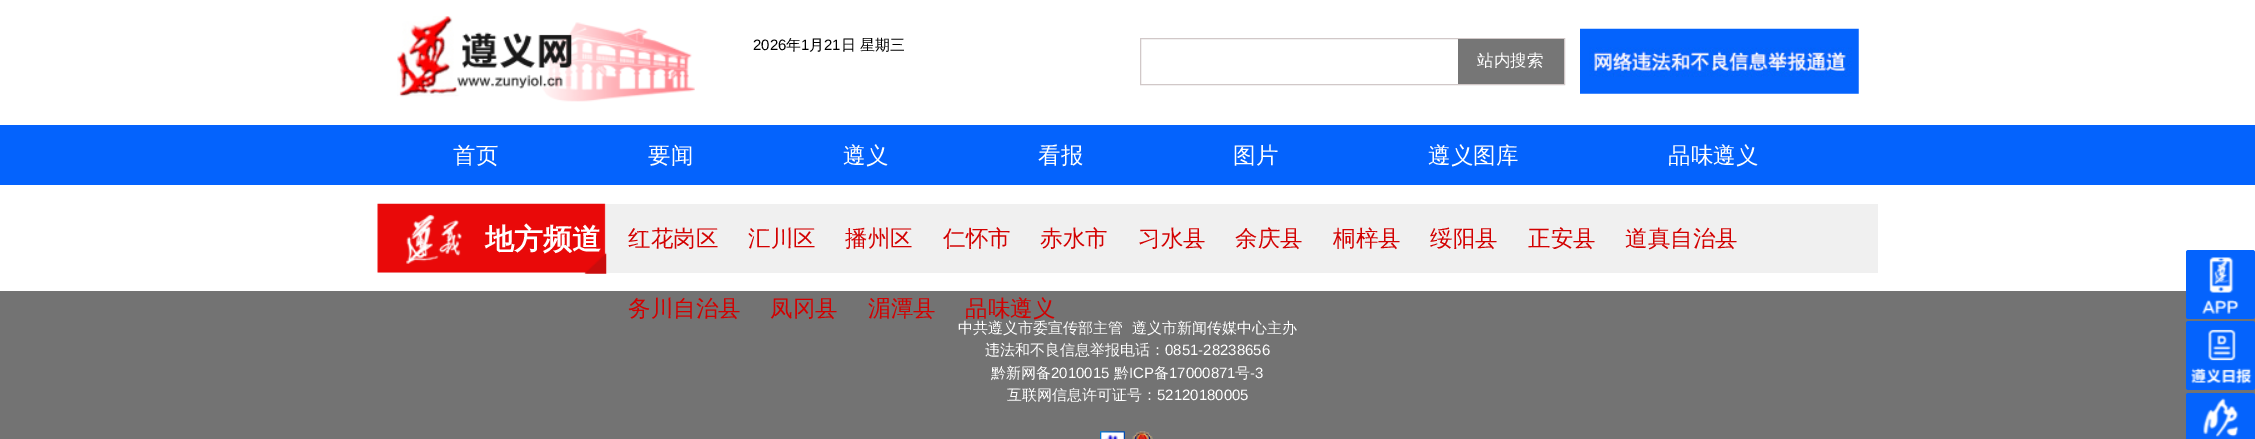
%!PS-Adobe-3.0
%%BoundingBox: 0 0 2255 439
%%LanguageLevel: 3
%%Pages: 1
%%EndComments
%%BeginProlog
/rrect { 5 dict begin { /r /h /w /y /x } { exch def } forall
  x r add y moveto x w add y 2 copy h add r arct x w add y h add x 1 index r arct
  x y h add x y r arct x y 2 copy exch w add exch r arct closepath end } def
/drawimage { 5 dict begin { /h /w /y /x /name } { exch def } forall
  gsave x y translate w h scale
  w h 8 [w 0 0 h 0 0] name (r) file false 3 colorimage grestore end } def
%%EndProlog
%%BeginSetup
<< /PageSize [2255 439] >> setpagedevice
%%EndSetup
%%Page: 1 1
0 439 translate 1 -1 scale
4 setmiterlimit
1 setgray
0 0 2255 439 rectfill
(images/1.raw) 397 16 298 86 drawimage
(images/2.raw) 1580 28 279 66 drawimage
0.82 0.784 0.784 setrgbcolor
1140.5 38.5 424 46 rectstroke
0.463 setgray
1458 39 106 45 rectfill
0.016 0.388 0.992 setrgbcolor
0 125 2255 60 rectfill
0.941 setgray
378 204 1500 69 rectfill
(images/3.raw) 377 203 230 71 drawimage
0.451 setgray
0 291 2255 148 rectfill
0.016 0.388 0.992 setrgbcolor
2186 250 69 69 2.5 rrect fill
(images/4.raw) 2202 257 37 57 drawimage
2186 321 69 69 2.5 rrect fill
(images/5.raw) 2191 329 61 55 drawimage
2186 393 69 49 2.5 rrect fill
(images/6.raw) 2203 398 36 39 drawimage
(images/7.raw) 1100 431 25 8 drawimage
(images/8.raw) 1132 431 21 8 drawimage
/LiberationSans-Regular [15 0 0 -15 0 0] selectfont
0 setgray
753 50 moveto (2026) show
/WenQuanYiZenHei-Medium [15 0 0 -15 0 0] selectfont
786 50 moveto (年) show
/LiberationSans-Regular [15 0 0 -15 0 0] selectfont
801 50 moveto (1) show
/WenQuanYiZenHei-Medium [15 0 0 -15 0 0] selectfont
809 50 moveto (月) show
/LiberationSans-Regular [15 0 0 -15 0 0] selectfont
824 50 moveto (21) show
/WenQuanYiZenHei-Medium [15 0 0 -15 0 0] selectfont
841 50 moveto (日) show
860 50 moveto (星期三) show
/WenQuanYiZenHei-Medium [16.5 0 0 -16.5 0 0] selectfont
1 setgray
1477 66 moveto (站内搜索) show
/WenQuanYiZenHei-Medium [22.5 0 0 -22.5 0 0] selectfont
453 163 moveto (首页) show
648 163 moveto (要闻) show
843 163 moveto (遵义) show
1038 163 moveto (看报) show
1233 163 moveto (图片) show
1428 163 moveto (遵义图库) show
1668 163 moveto (品味遵义) show
/WenQuanYiZenHei-Bold [29 0 0 -29 0 0] selectfont
485 249 moveto (地方频道) show
/WenQuanYiZenHei-Medium [22.5 0 0 -22.5 0 0] selectfont
0.827 0.004 0.004 setrgbcolor
628 246 moveto (红花岗区) show
748 246 moveto (汇川区) show
845 246 moveto (播州区) show
943 246 moveto (仁怀市) show
1040 246 moveto (赤水市) show
1138 246 moveto (习水县) show
1235 246 moveto (余庆县) show
1333 246 moveto (桐梓县) show
1430 246 moveto (绥阳县) show
1528 246 moveto (正安县) show
1625 246 moveto (道真自治县) show
628 316 moveto (务川自治县) show
770 316 moveto (凤冈县) show
868 316 moveto (湄潭县) show
965 316 moveto (品味遵义) show
/WenQuanYiZenHei-Medium [15 0 0 -15 0 0] selectfont
1 setgray
958 333 moveto (中共遵义市委宣传部主管) show
1132 333 moveto (遵义市新闻传媒中心主办) show
985 355 moveto (违法和不良信息举报电话：) show
/LiberationSans-Regular [15 0 0 -15 0 0] selectfont
1165 355 moveto (0851-28238656) show
/WenQuanYiZenHei-Medium [15 0 0 -15 0 0] selectfont
991 378 moveto (黔新网备) show
/LiberationSans-Regular [15 0 0 -15 0 0] selectfont
1051 378 moveto (2010015) show
/WenQuanYiZenHei-Medium [15 0 0 -15 0 0] selectfont
1114 378 moveto (黔) show
/LiberationSans-Regular [15 0 0 -15 0 0] selectfont
1129 378 moveto (ICP) show
/WenQuanYiZenHei-Medium [15 0 0 -15 0 0] selectfont
1154 378 moveto (备) show
/LiberationSans-Regular [15 0 0 -15 0 0] selectfont
1169 378 moveto (17000871) show
/WenQuanYiZenHei-Medium [15 0 0 -15 0 0] selectfont
1235 378 moveto (号) show
/LiberationSans-Regular [15 0 0 -15 0 0] selectfont
1250 378 moveto (-3) show
/WenQuanYiZenHei-Medium [15 0 0 -15 0 0] selectfont
1007 400 moveto (互联网信息许可证号：) show
/LiberationSans-Regular [15 0 0 -15 0 0] selectfont
1157 400 moveto (52120180005) show
showpage
%%EOF
